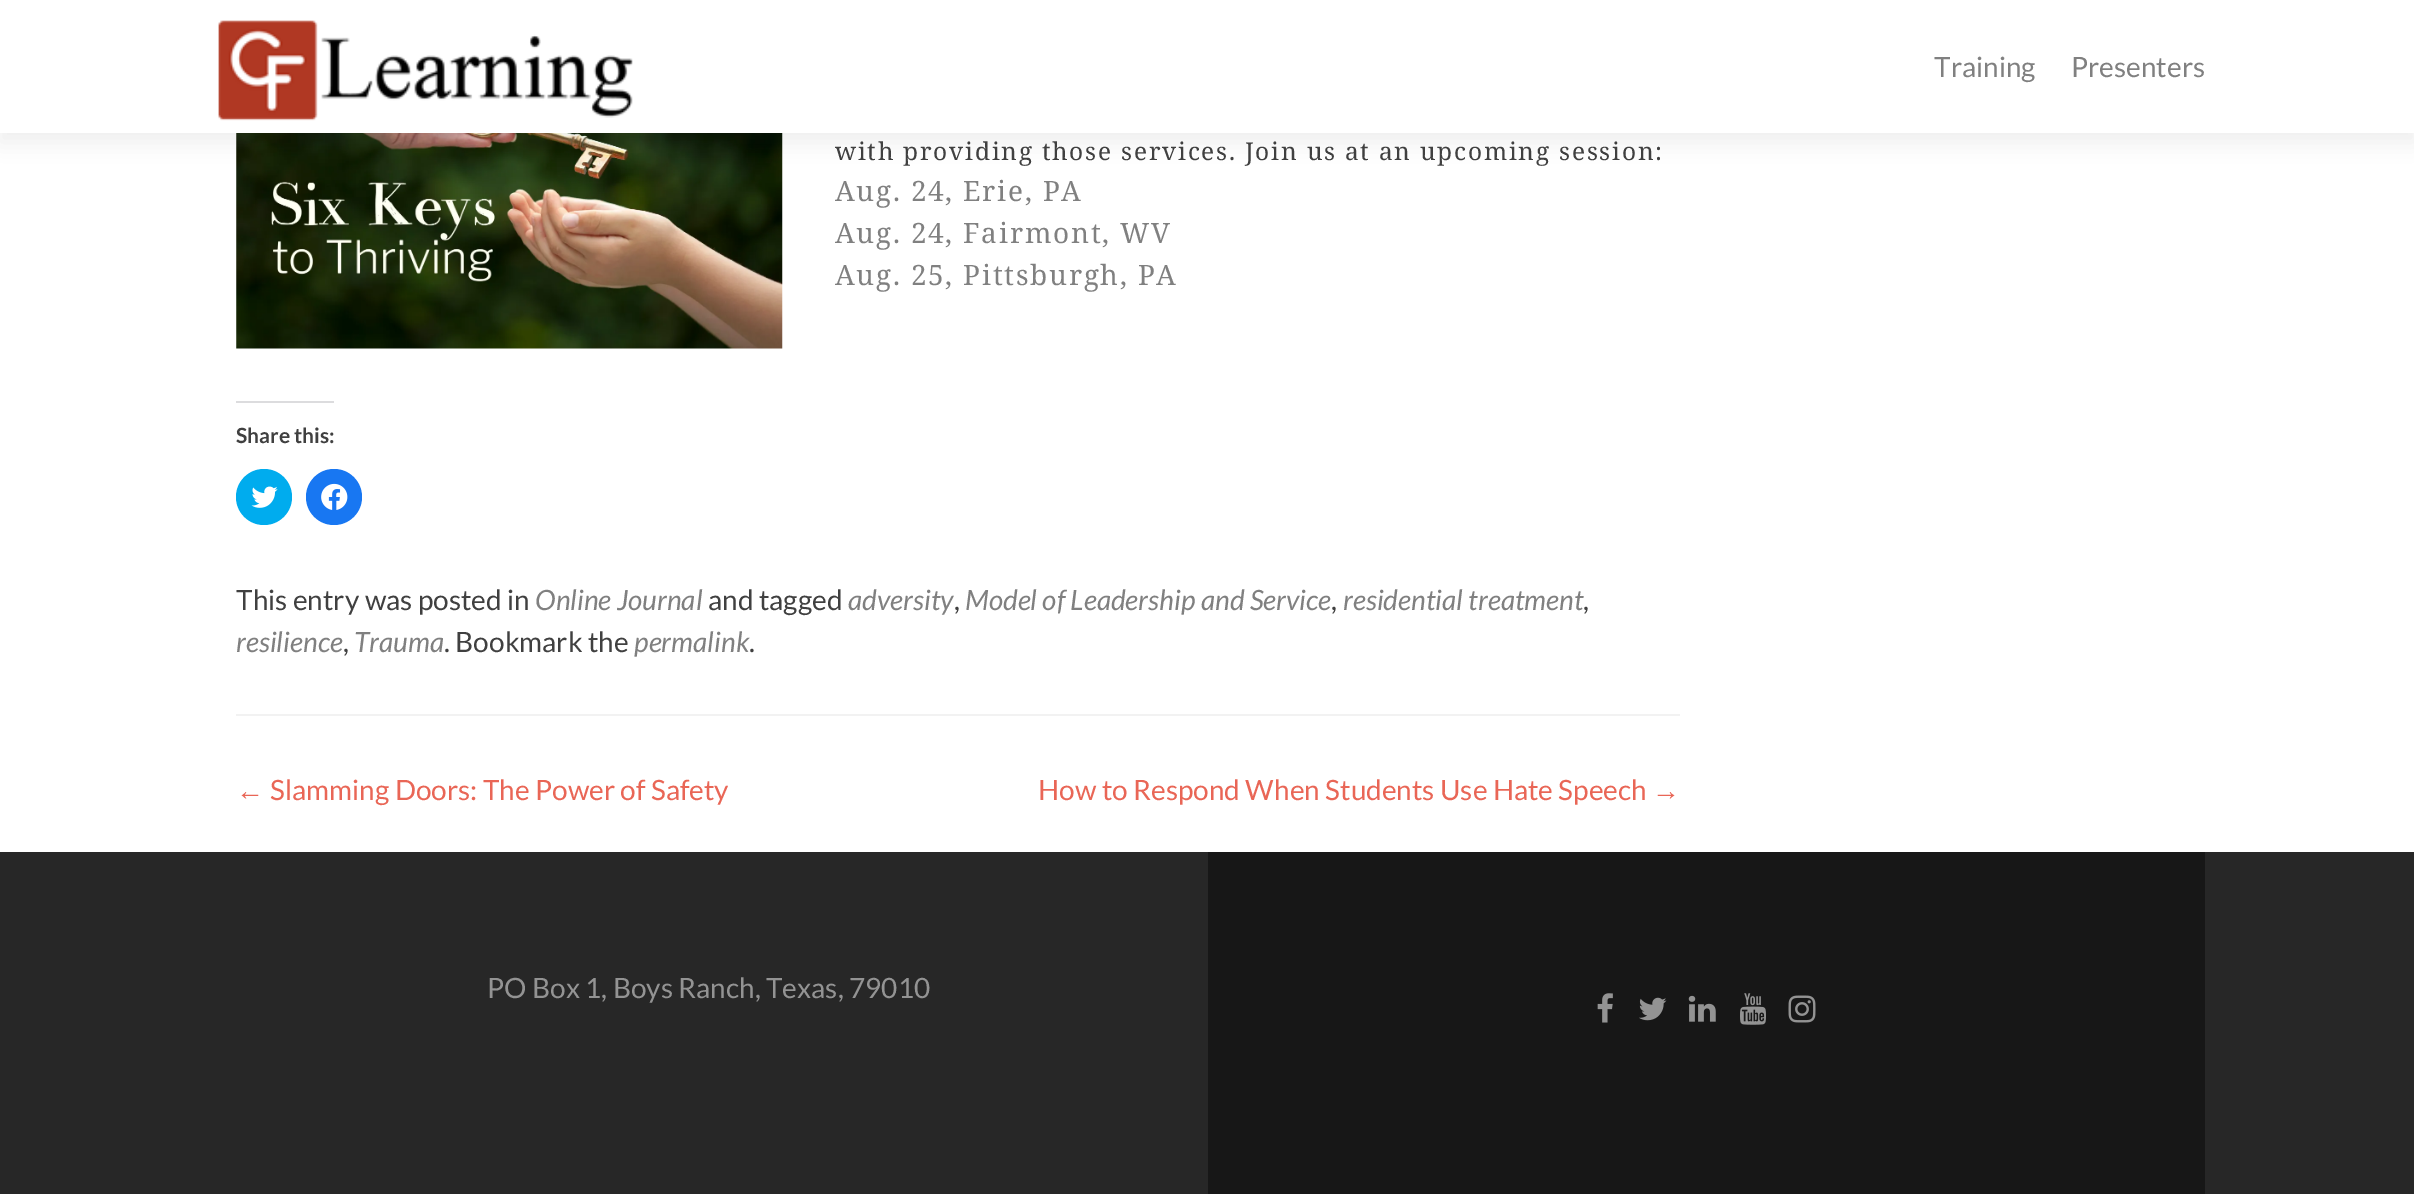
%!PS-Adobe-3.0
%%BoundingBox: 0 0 2414 1194
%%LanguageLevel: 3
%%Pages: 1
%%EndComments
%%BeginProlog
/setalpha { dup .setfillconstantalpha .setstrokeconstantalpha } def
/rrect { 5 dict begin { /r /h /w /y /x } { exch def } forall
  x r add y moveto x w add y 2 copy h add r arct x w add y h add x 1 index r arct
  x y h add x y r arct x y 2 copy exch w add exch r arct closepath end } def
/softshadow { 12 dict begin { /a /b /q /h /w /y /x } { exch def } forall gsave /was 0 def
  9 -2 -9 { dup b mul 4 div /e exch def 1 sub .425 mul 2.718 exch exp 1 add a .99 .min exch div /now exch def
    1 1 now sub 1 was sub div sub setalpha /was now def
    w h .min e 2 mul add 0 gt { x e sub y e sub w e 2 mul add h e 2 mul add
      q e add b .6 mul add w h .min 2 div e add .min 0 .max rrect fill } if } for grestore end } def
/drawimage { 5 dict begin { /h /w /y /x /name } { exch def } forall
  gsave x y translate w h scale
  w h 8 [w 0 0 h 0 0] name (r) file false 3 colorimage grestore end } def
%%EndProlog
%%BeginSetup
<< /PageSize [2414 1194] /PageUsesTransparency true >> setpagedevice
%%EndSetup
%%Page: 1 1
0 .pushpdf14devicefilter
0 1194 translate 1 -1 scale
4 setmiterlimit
1 setgray
0 0 2414 1194 rectfill
(images/2.raw) 236 133 547 216 drawimage
0.196 setgray
0 9 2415 133 0 9.5 0.08 softshadow
1 setgray
0 0 2414 133 rectfill
(images/1.raw) 218 20 415 101 drawimage
0.949 setgray
236 714 1444 2 rectfill
0.863 0.863 0.871 setrgbcolor
236 401 98 2 rectfill
0 0.675 0.933 setrgbcolor
newpath 264 497 28 0 360 arc closepath fill
(images/3.raw) 251 486 27 22 drawimage
0.094 0.467 0.949 setrgbcolor
newpath 334 497 28 0 360 arc closepath fill
(images/4.raw) 321 483 27 27 drawimage
0.153 setgray
0 852 2414 342 rectfill
0.09 setgray
1208 852 997 342 rectfill
(images/5.raw) 1597 993 16 30 drawimage
(images/6.raw) 1639 997 28 24 drawimage
(images/7.raw) 1688 995 28 27 drawimage
(images/8.raw) 1740 993 26 32 drawimage
(images/9.raw) 1788 995 28 28 drawimage
/Lato-Regular [28 0 0 -28 0 0] selectfont
0.502 setgray
1934 77 moveto (Training) show
2071 77 moveto (Presenters) show
/NotoSerif-Regular [24.5 0 0 -24.5 0 0] selectfont
0.251 setgray
835 160 moveto 1.75 0 (with providing those services. Join us at an upcoming session:) ashow
/NotoSerif-Regular [28 0 0 -28 0 0] selectfont
0.502 setgray
835 201 moveto 1.75 0 (Aug. 24, Erie, PA) ashow
835 243 moveto 1.75 0 (Aug. 24, Fairmont, WV) ashow
835 285 moveto 1.75 0 (Aug. 25, Pittsburgh, PA) ashow
/Lato-Bold [21 0 0 -21 0 0] selectfont
0.251 setgray
236 443 moveto (Share this:) show
/Lato-Regular [28 0 0 -28 0 0] selectfont
236 610 moveto (This entry was posted in) show
/Lato-Italic [28 0 0 -28 0 0] selectfont
0.502 setgray
535 610 moveto (Online Journal) show
/Lato-Regular [28 0 0 -28 0 0] selectfont
0.251 setgray
708 610 moveto (and tagged) show
/Lato-Italic [28 0 0 -28 0 0] selectfont
0.502 setgray
848 610 moveto (adversity) show
/Lato-Regular [28 0 0 -28 0 0] selectfont
0.251 setgray
954 610 moveto (,) show
/Lato-Italic [28 0 0 -28 0 0] selectfont
0.502 setgray
965 610 moveto (Model of Leadership and Service) show
/Lato-Regular [28 0 0 -28 0 0] selectfont
0.251 setgray
1331 610 moveto (,) show
/Lato-Italic [28 0 0 -28 0 0] selectfont
0.502 setgray
1343 610 moveto (residential treatment) show
/Lato-Regular [28 0 0 -28 0 0] selectfont
0.251 setgray
1583 610 moveto (,) show
/Lato-Italic [28 0 0 -28 0 0] selectfont
0.502 setgray
236 652 moveto (resilience) show
/Lato-Regular [28 0 0 -28 0 0] selectfont
0.251 setgray
343 652 moveto (,) show
/Lato-Italic [28 0 0 -28 0 0] selectfont
0.502 setgray
354 652 moveto (Trauma) show
/Lato-Regular [28 0 0 -28 0 0] selectfont
0.251 setgray
444 652 moveto (. Bookmark the) show
/Lato-Italic [28 0 0 -28 0 0] selectfont
0.502 setgray
634 652 moveto (permalink) show
/Lato-Regular [28 0 0 -28 0 0] selectfont
0.251 setgray
749 652 moveto (.) show
/LiberationSans-Regular [28 0 0 -28 0 0] selectfont
0.914 0.4 0.337 setrgbcolor
236 800 moveto (←) show
/Lato-Regular [28 0 0 -28 0 0] selectfont
270 800 moveto (Slamming Doors: The Power of Safety) show
1038 800 moveto (How to Respond When Students Use Hate Speech) show
/LiberationSans-Regular [28 0 0 -28 0 0] selectfont
1652 800 moveto (→) show
/Lato-Regular [28 0 0 -28 0 0] selectfont
0.576 setgray
487 998 moveto (PO Box 1, Boys Ranch, Texas, 79010) show
.poppdf14devicefilter showpage
%%EOF
